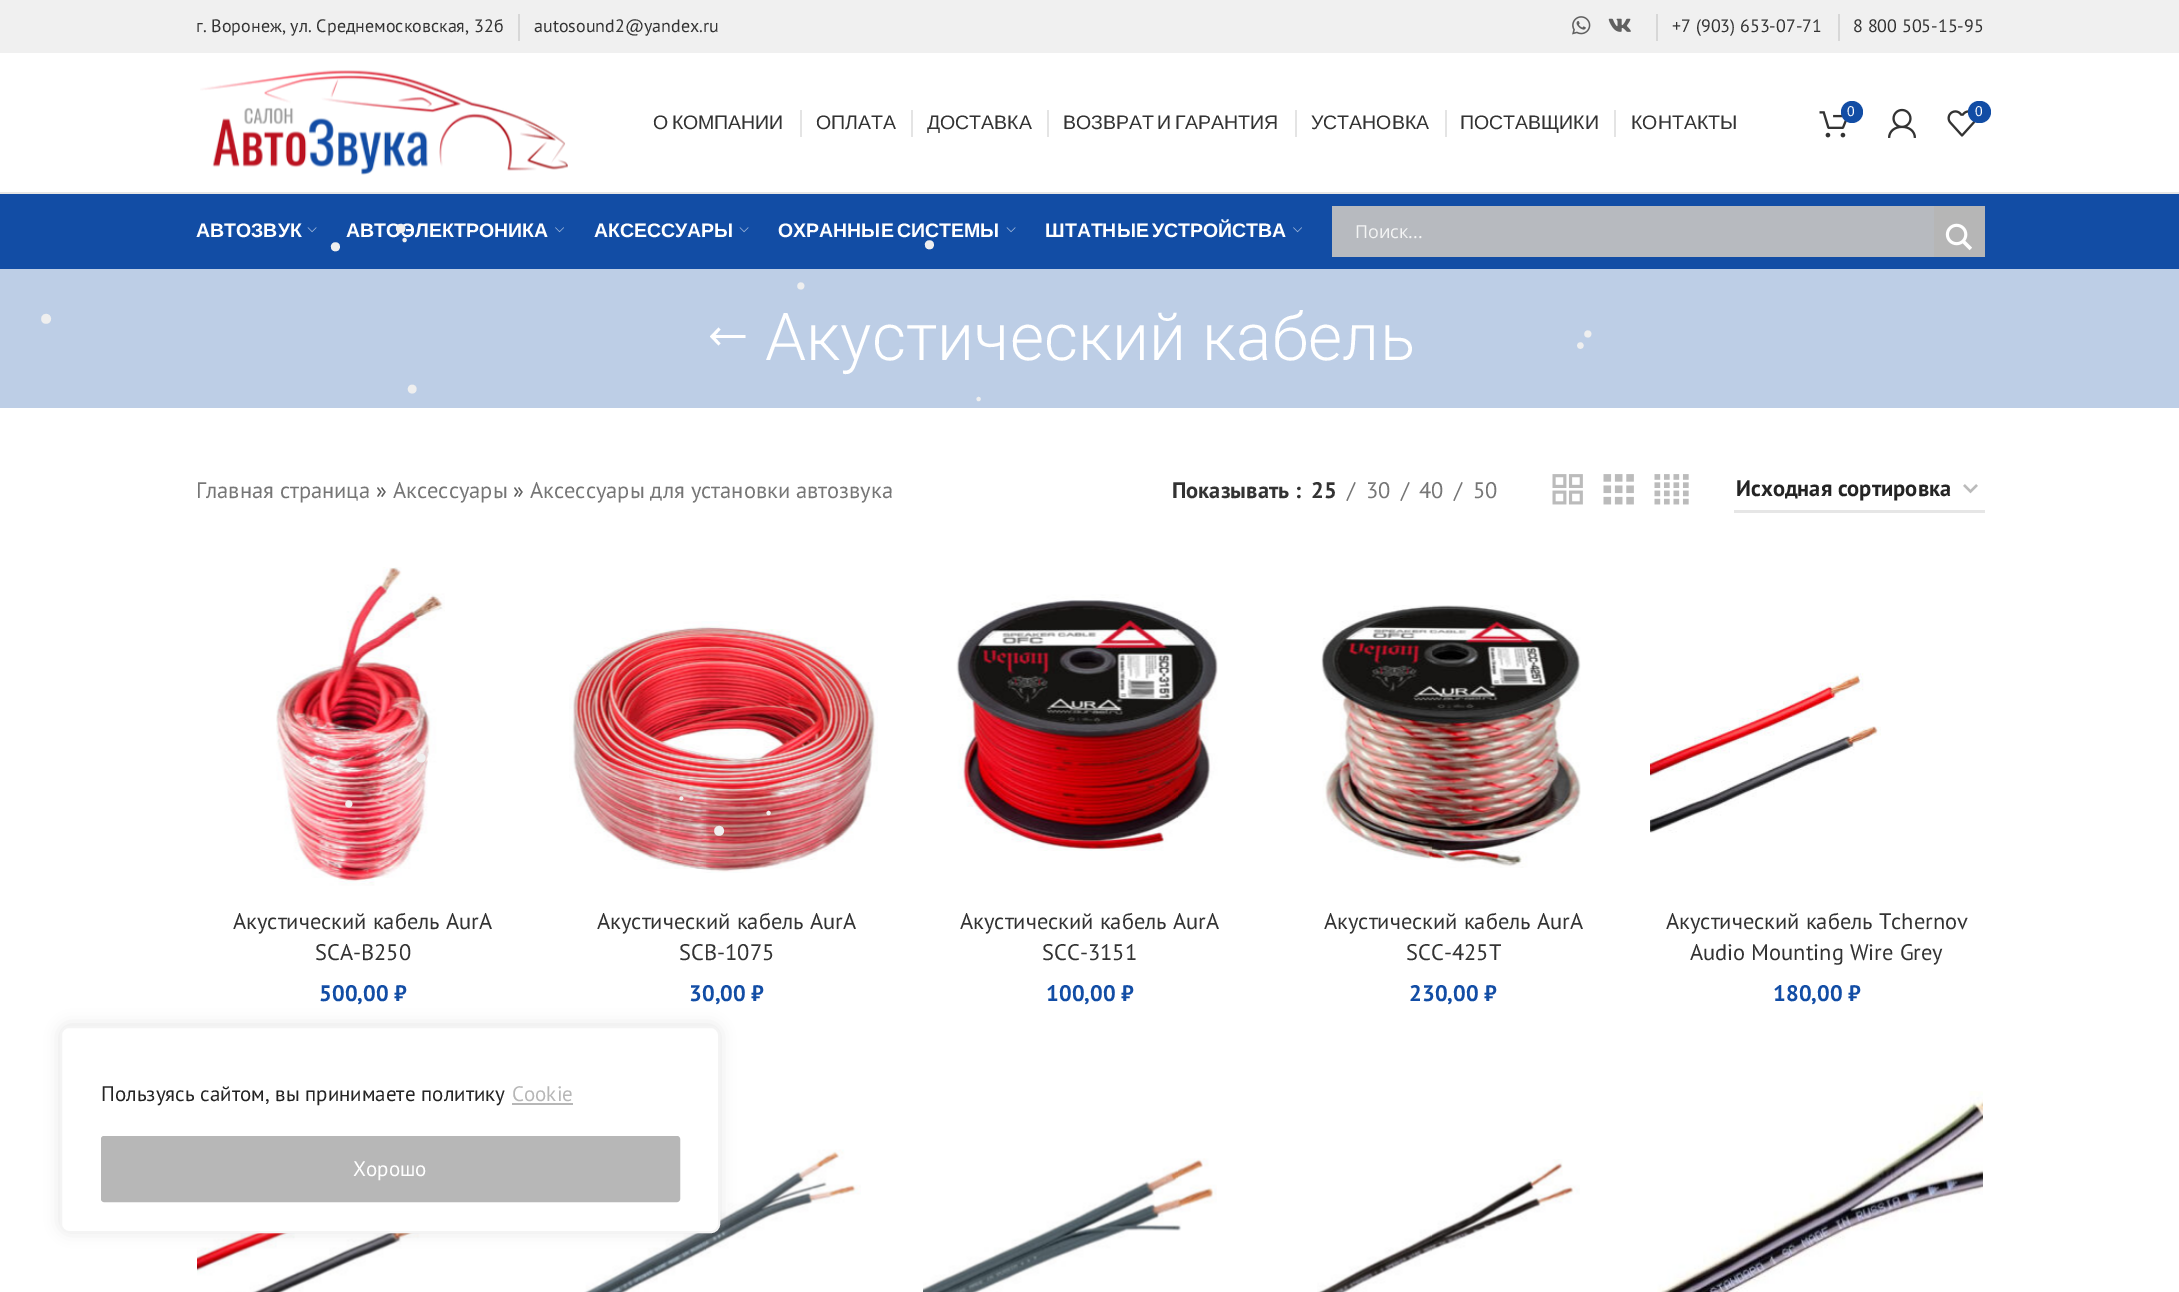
%!PS-Adobe-3.0
%%BoundingBox: 0 0 2179 1292
%%LanguageLevel: 3
%%Pages: 1
%%EndComments
%%BeginProlog
/setalpha { dup .setfillconstantalpha .setstrokeconstantalpha } def
/rrect { 5 dict begin { /r /h /w /y /x } { exch def } forall
  x r add y moveto x w add y 2 copy h add r arct x w add y h add x 1 index r arct
  x y h add x y r arct x y 2 copy exch w add exch r arct closepath end } def
/softshadow { 12 dict begin { /a /b /q /h /w /y /x } { exch def } forall gsave /was 0 def
  9 -2 -9 { dup b mul 4 div /e exch def 1 sub .425 mul 2.718 exch exp 1 add a .99 .min exch div /now exch def
    1 1 now sub 1 was sub div sub setalpha /was now def
    w h .min e 2 mul add 0 gt { x e sub y e sub w e 2 mul add h e 2 mul add
      q e add b .6 mul add w h .min 2 div e add .min 0 .max rrect fill } if } for grestore end } def
/drawimage { 5 dict begin { /h /w /y /x /name } { exch def } forall
  gsave x y translate w h scale
  w h 8 [w 0 0 h 0 0] name (r) file false 3 colorimage grestore end } def
%%EndProlog
%%BeginSetup
<< /PageSize [2179 1292] /PageUsesTransparency true >> setpagedevice
%%EndSetup
%%Page: 1 1
0 .pushpdf14devicefilter
0 1292 translate 1 -1 scale
4 setmiterlimit
1 setgray
0 0 2179 1292 rectfill
0.941 setgray
0 0 2179 53 rectfill
0.843 setgray
518 14 2 27 rectfill
(images/1.raw) 1572 16 19 19 drawimage
(images/2.raw) 1608 18 23 14 drawimage
1656 14 2 27 rectfill
1838 14 2 27 rectfill
0.902 setgray
0 192 2179 2 rectfill
(images/3.raw) 200 70 368 105 drawimage
(images/4.raw) 1819 111 28 27 drawimage
0.071 0.302 0.647 setrgbcolor
newpath 1852 112 11 0 360 arc closepath fill
(images/5.raw) 1888 108 28 30 drawimage
(images/6.raw) 1947 110 29 27 drawimage
1968 101 23 22 11 rrect fill
0.894 setgray
800 110 2 27 rectfill
911 110 2 27 rectfill
1047 110 2 27 rectfill
1295 110 2 27 rectfill
1445 110 2 27 rectfill
1614 110 2 27 rectfill
0.071 0.302 0.647 setrgbcolor
0 194 2179 75 rectfill
(images/7.raw) 307 227 10 6 drawimage
(images/8.raw) 555 227 9 6 drawimage
(images/7.raw) 739 227 10 6 drawimage
(images/7.raw) 1006 227 10 6 drawimage
(images/8.raw) 1293 227 9 6 drawimage
0.718 0.729 0.749 setrgbcolor
1332 206 602 51 rectfill
0.714 setgray
1934 206 51 51 rectfill
(images/9.raw) 1945 223 27 28 drawimage
0.741 0.808 0.902 setrgbcolor
0 269 2179 139 rectfill
1 setgray
newpath 720.5 343.5 moveto 715.5 338 lineto 745.5 338 lineto 745.5 335 lineto 715.5 335 lineto 720.5 329.5 lineto 718.5 327.5 lineto 710 336.5 lineto 718.5 345.5 lineto closepath fill
(images/10.raw) 1552 474 31 31 drawimage
(images/11.raw) 1603 474 31 31 drawimage
(images/12.raw) 1654 474 35 31 drawimage
0.733 setgray
2.2 setlinewidth
newpath 1964 485 moveto 1970.5 491.5 lineto 1977 485 lineto stroke
0.902 setgray
1734 510 251 3 rectfill
(images/13.raw) 276 567 169 319 drawimage
(images/14.raw) 569 621 309 252 drawimage
(images/15.raw) 956 594 262 257 drawimage
(images/16.raw) 1321 605 260 263 drawimage
(images/17.raw) 1650 673 231 160 drawimage
(images/18.raw) 197 1233 231 59 drawimage
(images/19.raw) 584 1149 277 143 drawimage
(images/20.raw) 923 1158 294 134 drawimage
(images/21.raw) 1317 1159 263 133 drawimage
(images/22.raw) 1657 1091 326 201 drawimage
0.675 0.671 0.671 setrgbcolor
60 1025 660 207 9 7.5 0.3 softshadow
1 setgray
61 1027 658 205 8 rrect gsave fill grestore
0.957 setgray
2 setlinewidth
stroke
0.718 setgray
512 1103 61 2 rectfill
102.5 1137.5 576 63 1.5 rrect gsave fill grestore
3 setlinewidth
stroke
/PTSans-Regular [18 0 0 -18 0 0] selectfont
0.2 setgray
196 32 moveto (г. Воронеж, ул. Среднемосковская, 32б) show
534 32 moveto (autosound2@yandex.ru) show
1672 32 moveto (+7 \(903\) 653-07-71) show
1853 32 moveto (8 800 505-15-95) show
/PTSans-Regular [14 0 0 -14 0 0] selectfont
1 setgray
1847 116 moveto (0) show
1975 116 moveto (0) show
/LiberationSans-Regular [19.5 0 0 -19.5 0 0] selectfont
0.2 setgray
653 129 moveto -2 0 32 (О КОМПАНИИ) widthshow
816 129 moveto (ОПЛАТА) show
927 129 moveto (ДОСТАВКА) show
1063 129 moveto -2 0 32 (ВОЗВРАТ И ГАРАНТИЯ) widthshow
1311 129 moveto (УСТАНОВКА) show
1460 129 moveto (ПОСТАВЩИКИ) show
1631 129 moveto (КОНТАКТЫ) show
/LiberationSans-Bold [19.5 0 0 -19.5 0 0] selectfont
1 setgray
196 237 moveto (АВТОЗВУК) show
346 237 moveto (АВТОЭЛЕКТРОНИКА) show
594 237 moveto (АКСЕССУАРЫ) show
778 237 moveto -2 0 32 (ОХРАННЫЕ СИСТЕМЫ) widthshow
1045 237 moveto -2 0 32 (ШТАТНЫЕ УСТРОЙСТВА) widthshow
/OpenSans-Regular [18 0 0 -18 0 0] selectfont
0.957 0.961 0.961 setrgbcolor
1355 238 moveto (Поиск...) show
/Roboto-Light [66 0 0 -66 0 0] selectfont
1 setgray
765 360 moveto (Акустический кабель) show
/PTSans-Regular [22.5 0 0 -22.5 0 0] selectfont
0.463 setgray
196 498 moveto (Главная страница) show
0.349 setgray
376 498 moveto (») show
0.463 setgray
393 498 moveto (Аксессуары) show
0.349 setgray
513 498 moveto (») show
0.463 setgray
530 498 moveto (Аксессуары для установки автозвука) show
/PTSans-Bold [22.5 0 0 -22.5 0 0] selectfont
0.2 setgray
1172 498 moveto (Показывать :) show
1311 498 moveto (25) show
/PTSans-Regular [22.5 0 0 -22.5 0 0] selectfont
0.463 setgray
1347 498 moveto (/) show
1366 498 moveto (30) show
1401 498 moveto (/) show
1419 498 moveto (40) show
1454 498 moveto (/) show
1473 498 moveto (50) show
/PTSans-Bold [22.5 0 0 -22.5 0 0] selectfont
0.141 setgray
1736 496 moveto (Исходная сортировка) show
/PTSans-Regular [22.5 0 0 -22.5 0 0] selectfont
0.2 setgray
233 929 moveto (Акустический кабель AurA) show
315 960 moveto (SCA-B250) show
/PTSans-Bold [22.5 0 0 -22.5 0 0] selectfont
0.071 0.302 0.647 setrgbcolor
319 1001 moveto (500,00 ₽) show
/PTSans-Regular [22.5 0 0 -22.5 0 0] selectfont
0.2 setgray
597 929 moveto (Акустический кабель AurA) show
679 960 moveto (SCB-1075) show
/PTSans-Bold [22.5 0 0 -22.5 0 0] selectfont
0.071 0.302 0.647 setrgbcolor
689 1001 moveto (30,00 ₽) show
/PTSans-Regular [22.5 0 0 -22.5 0 0] selectfont
0.2 setgray
960 929 moveto (Акустический кабель AurA) show
1042 960 moveto (SCC-3151) show
/PTSans-Bold [22.5 0 0 -22.5 0 0] selectfont
0.071 0.302 0.647 setrgbcolor
1046 1001 moveto (100,00 ₽) show
/PTSans-Regular [22.5 0 0 -22.5 0 0] selectfont
0.2 setgray
1324 929 moveto (Акустический кабель AurA) show
1406 960 moveto (SCC-425T) show
/PTSans-Bold [22.5 0 0 -22.5 0 0] selectfont
0.071 0.302 0.647 setrgbcolor
1409 1001 moveto (230,00 ₽) show
/PTSans-Regular [22.5 0 0 -22.5 0 0] selectfont
0.2 setgray
1666 929 moveto (Акустический кабель Tchernov) show
1690 960 moveto (Audio Mounting Wire Grey) show
/PTSans-Bold [22.5 0 0 -22.5 0 0] selectfont
0.071 0.302 0.647 setrgbcolor
1773 1001 moveto (180,00 ₽) show
/PTSans-Regular [34 0 0 -34 0 0] selectfont
0.937 setgray
393 239 moveto (•) show
/PTSans-Regular [33 0 0 -33 0 0] selectfont
328 257 moveto (•) show
/PTSans-Regular [16 0 0 -16 0 0] selectfont
401 245 moveto (•) show
/PTSans-Regular [33 0 0 -33 0 0] selectfont
922 255 moveto (•) show
/PTSans-Regular [26 0 0 -26 0 0] selectfont
795 294 moveto (•) show
/PTSans-Regular [36 0 0 -36 0 0] selectfont
38 330 moveto (•) show
/PTSans-Regular [26 0 0 -26 0 0] selectfont
1582 342 moveto (•) show
/PTSans-Regular [24 0 0 -24 0 0] selectfont
1575 353 moveto (•) show
/PTSans-Regular [32 0 0 -32 0 0] selectfont
405 399 moveto (•) show
/PTSans-Regular [16 0 0 -16 0 0] selectfont
975 404 moveto (•) show
/PTSans-Regular [32 0 0 -32 0 0] selectfont
414 768 moveto (•) show
/PTSans-Regular [15 0 0 -15 0 0] selectfont
678 803 moveto (•) show
/PTSans-Regular [26 0 0 -26 0 0] selectfont
343 812 moveto (•) show
/PTSans-Regular [16 0 0 -16 0 0] selectfont
765 818 moveto (•) show
/PTSans-Regular [36 0 0 -36 0 0] selectfont
711 842 moveto (•) show
/PTSans-Regular [21 0 0 -21 0 0] selectfont
0.141 setgray
101 1101 moveto (Пользуясь сайтом, вы принимаете политику) show
0.718 setgray
512 1101 moveto (Cookie) show
1 setgray
353 1176 moveto (Хорошо) show
.poppdf14devicefilter showpage
%%EOF
